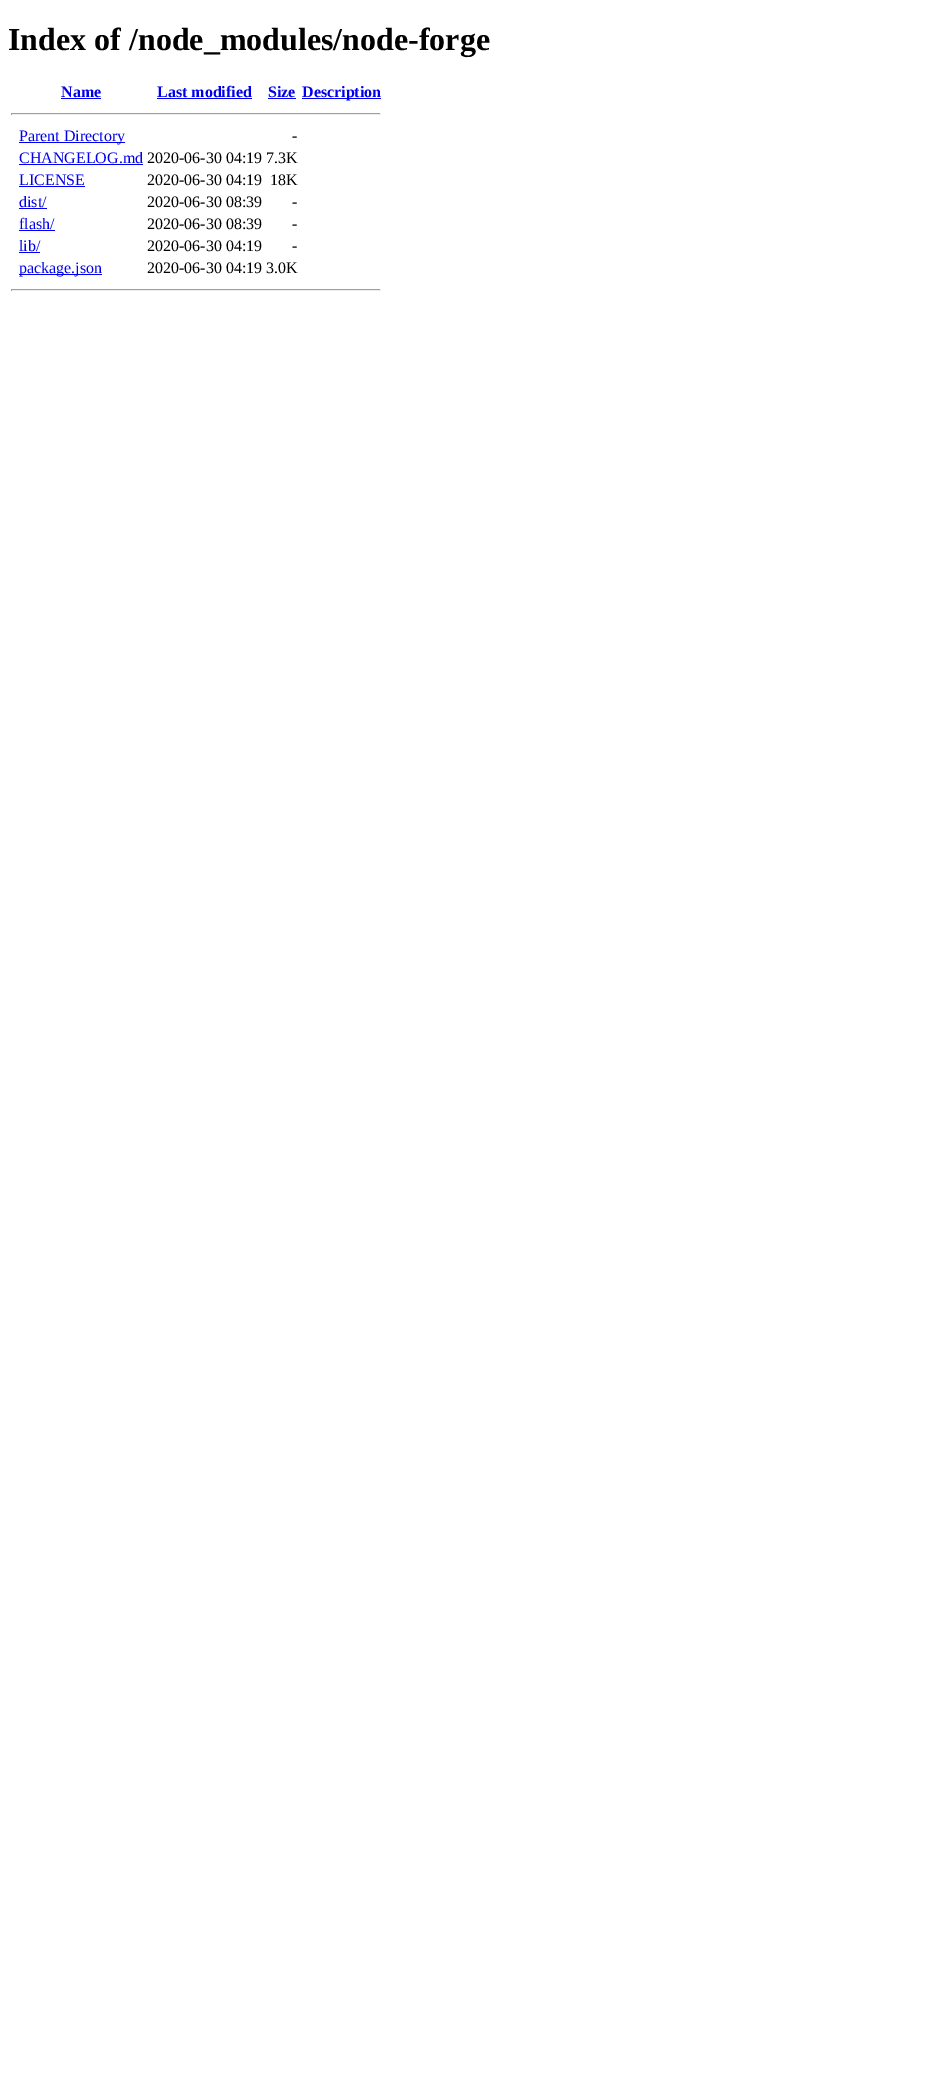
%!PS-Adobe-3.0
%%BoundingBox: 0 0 940 2100
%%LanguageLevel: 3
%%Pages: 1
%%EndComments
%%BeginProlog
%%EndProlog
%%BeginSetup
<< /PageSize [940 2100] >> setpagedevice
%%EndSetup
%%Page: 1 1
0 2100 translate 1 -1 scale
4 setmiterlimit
1 setgray
0 0 940 2100 rectfill
0 0 0.933 setrgbcolor
61 98 40 1 rectfill
157 98 95 1 rectfill
268 98 28 1 rectfill
302 98 79 1 rectfill
0.624 setgray
11 113 370 1 rectfill
0.933 setgray
380 113 1 2 rectfill
11 114 370 1 rectfill
0.624 setgray
11 113 1 2 rectfill
0 0 0.933 setrgbcolor
19 142 106 1 rectfill
19 164 124 1 rectfill
19 186 66 1 rectfill
19 208 28 1 rectfill
19 230 36 1 rectfill
19 252 21 1 rectfill
19 274 83 1 rectfill
0.624 setgray
11 289 370 1 rectfill
0.933 setgray
380 289 1 2 rectfill
11 290 370 1 rectfill
0.624 setgray
11 289 1 2 rectfill
/LiberationSerif-Bold [32 0 0 -32 0 0] selectfont
0 setgray
8 50 moveto (Index of /node_modules/node-forge) show
/LiberationSerif-Bold [16 0 0 -16 0 0] selectfont
0 0 0.933 setrgbcolor
61 97 moveto (Name) show
157 97 moveto (Last modified) show
268 97 moveto (Size) show
302 97 moveto (Description) show
/LiberationSerif-Regular [16 0 0 -16 0 0] selectfont
19 141 moveto (Parent Directory) show
0 setgray
292 141 moveto (-) show
0 0 0.933 setrgbcolor
19 163 moveto (CHANGELOG.md) show
0 setgray
147 163 moveto (2020-06-30 04:19 7.3K) show
0 0 0.933 setrgbcolor
19 185 moveto (LICENSE) show
0 setgray
147 185 moveto (2020-06-30 04:19) show
270 185 moveto (18K) show
0 0 0.933 setrgbcolor
19 207 moveto (dist/) show
0 setgray
147 207 moveto (2020-06-30 08:39) show
292 207 moveto (-) show
0 0 0.933 setrgbcolor
19 229 moveto (flash/) show
0 setgray
147 229 moveto (2020-06-30 08:39) show
292 229 moveto (-) show
0 0 0.933 setrgbcolor
19 251 moveto (lib/) show
0 setgray
147 251 moveto (2020-06-30 04:19) show
292 251 moveto (-) show
0 0 0.933 setrgbcolor
19 273 moveto (package.json) show
0 setgray
147 273 moveto (2020-06-30 04:19 3.0K) show
showpage
%%EOF
